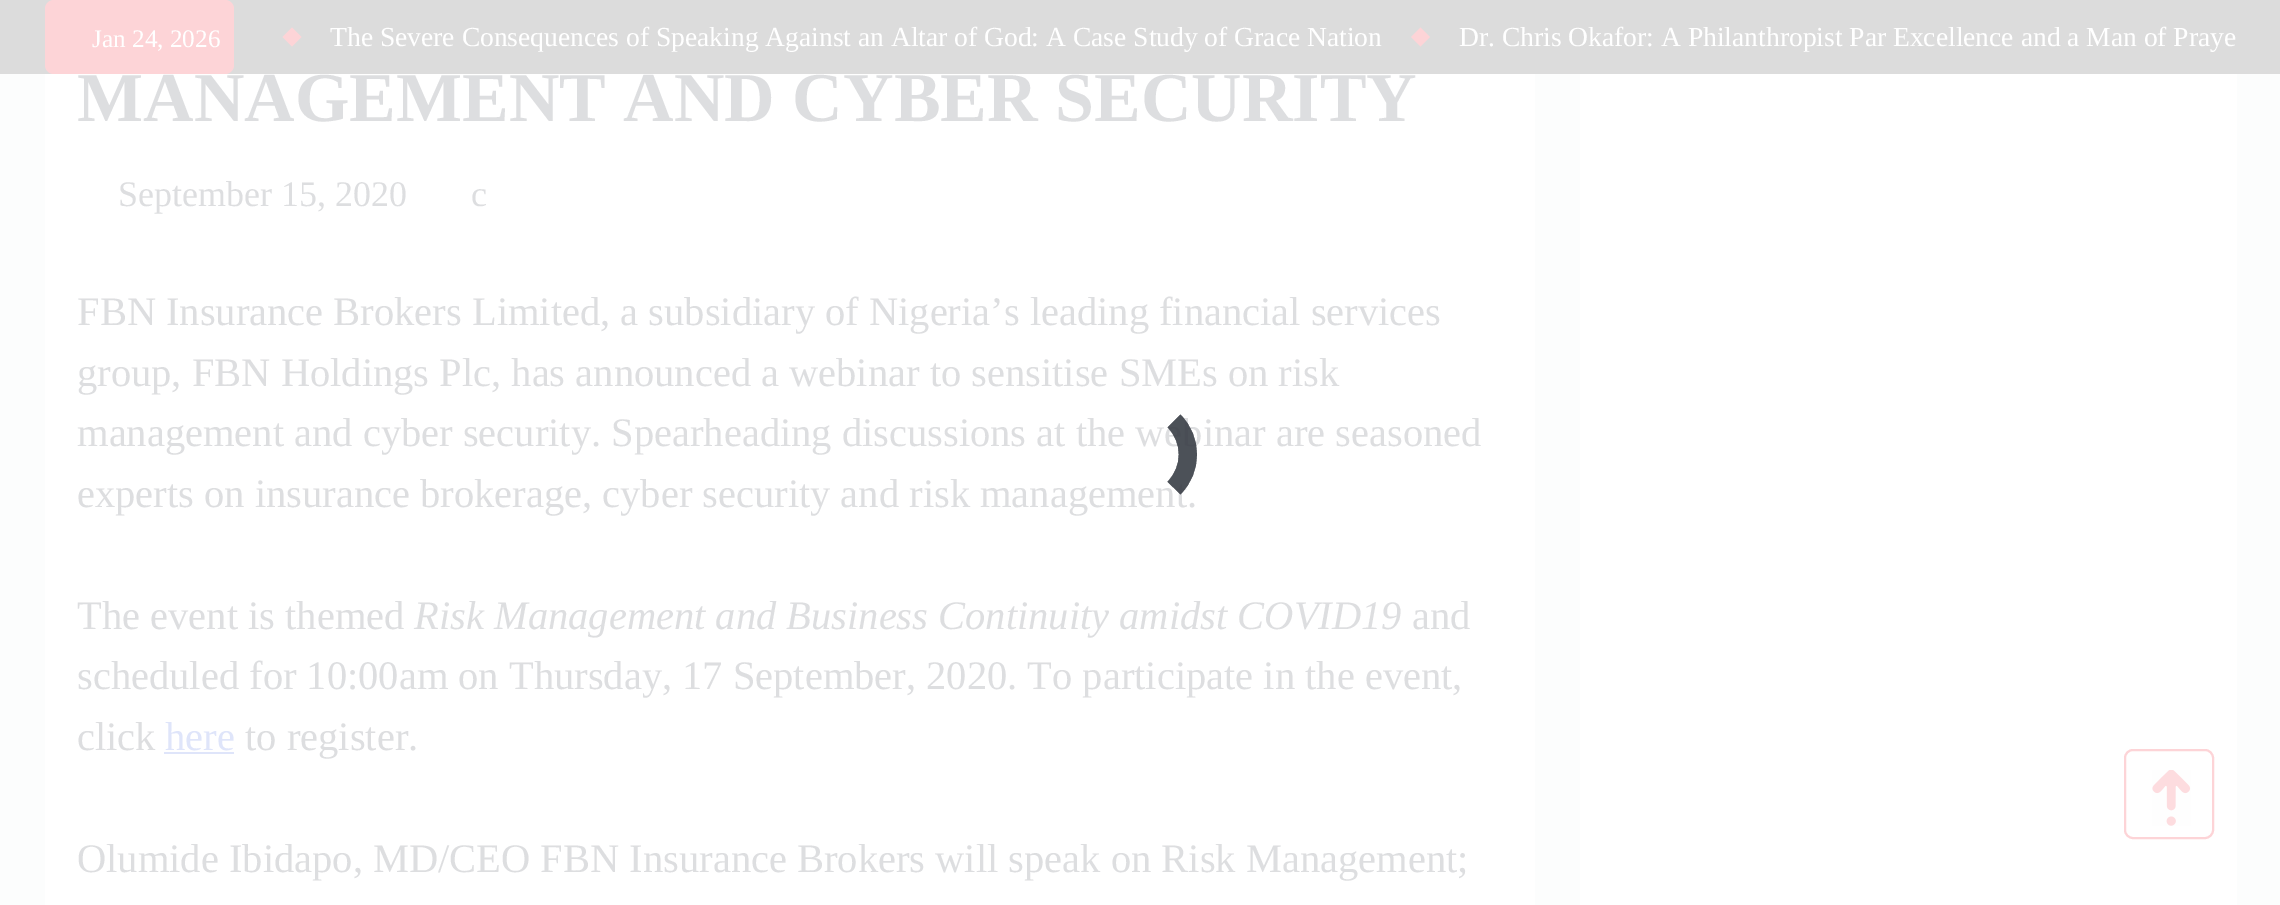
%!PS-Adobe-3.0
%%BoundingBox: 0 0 2280 905
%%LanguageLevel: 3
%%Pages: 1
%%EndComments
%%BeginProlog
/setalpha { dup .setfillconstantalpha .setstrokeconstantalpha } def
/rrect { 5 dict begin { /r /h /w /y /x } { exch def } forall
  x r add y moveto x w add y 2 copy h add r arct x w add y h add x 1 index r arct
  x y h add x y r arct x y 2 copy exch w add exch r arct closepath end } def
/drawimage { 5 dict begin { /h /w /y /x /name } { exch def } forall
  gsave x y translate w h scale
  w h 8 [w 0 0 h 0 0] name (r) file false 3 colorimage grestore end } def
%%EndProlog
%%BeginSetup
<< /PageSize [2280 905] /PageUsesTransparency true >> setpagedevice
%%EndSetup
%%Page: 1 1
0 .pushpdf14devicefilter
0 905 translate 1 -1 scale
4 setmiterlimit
0.988 0.992 0.992 setrgbcolor
0 0 2280 905 rectfill
0.863 setgray
0 0 2280 74 rectfill
0.992 0.831 0.843 setrgbcolor
45 0 189 74 9 rrect fill
newpath 292 27.5 moveto 301.5 37 lineto 292 46.5 lineto 282.5 37 lineto closepath fill
newpath 1420.5 27.5 moveto 1430 37 lineto 1420.5 46.5 lineto 1411 37 lineto closepath fill
1 setgray
45 74 1490 831 rectfill
0.875 0.898 0.98 setrgbcolor
164 752 70 2 rectfill
1 setgray
1580 74 657 831 rectfill
0.992 0.831 0.843 setrgbcolor
2 setlinewidth
2125 750 88 88 8 rrect stroke
(images/1.raw) 2152 770 39 56 drawimage
/LiberationSerif-Regular [25.25 0 0 -25.25 0 0] selectfont
1 setgray
92 47 moveto (Jan 24, 2026) show
/LiberationSerif-Regular [27.55 0 0 -27.55 0 0] selectfont
330 46 moveto (The Severe Consequences of Speaking Against an Altar of God: A Case Study of Grace Nation) show
1459 46 moveto (Dr. Chris Okafor: A Philanthropist Par Excellence and a Man of Praye) show
/LiberationSerif-Bold [70 0 0 -70 0 0] selectfont
0.867 0.871 0.878 setrgbcolor
77 121 moveto (MANAGEMENT AND CYBER SECURITY) show
/LiberationSerif-Regular [36 0 0 -36 0 0] selectfont
118 206 moveto (September 15, 2020) show
471 206 moveto (c) show
/LiberationSerif-Regular [40.5 0 0 -40.5 0 0] selectfont
77 325 moveto (FBN Insurance Brokers Limited, a subsidiary of Nigeria’s leading financial services) show
77 386 moveto (group, FBN Holdings Plc, has announced a webinar to sensitise SMEs on risk) show
77 446 moveto (management and cyber security. Spearheading discussions at the webinar are seasoned) show
77 507 moveto (experts on insurance brokerage, cyber security and risk management.) show
77 629 moveto (The event is themed) show
/LiberationSerif-Italic [40.5 0 0 -40.5 0 0] selectfont
414 629 moveto (Risk Management and Business Continuity amidst COVID19) show
/LiberationSerif-Regular [40.5 0 0 -40.5 0 0] selectfont
1412 629 moveto (and) show
77 689 moveto (scheduled for 10:00am on Thursday, 17 September, 2020. To participate in the event,) show
77 750 moveto (click) show
0.875 0.898 0.98 setrgbcolor
165 750 moveto (here) show
0.867 0.871 0.878 setrgbcolor
245 750 moveto (to register.) show
77 872 moveto (Olumide Ibidapo, MD/CEO FBN Insurance Brokers will speak on Risk Management;) show
0.54 setalpha
0.224 0.243 0.275 setrgbcolor
18 setlinewidth
newpath 1174 421 moveto 1192.5 439.5 1192.5 469.5 1174 488 curveto stroke
newpath 1174 421 moveto 1192.5 439.5 1192.5 469.5 1174 488 curveto stroke
newpath 1174 421 moveto 1192.5 439.5 1192.5 469.5 1174 488 curveto stroke
.poppdf14devicefilter showpage
%%EOF
